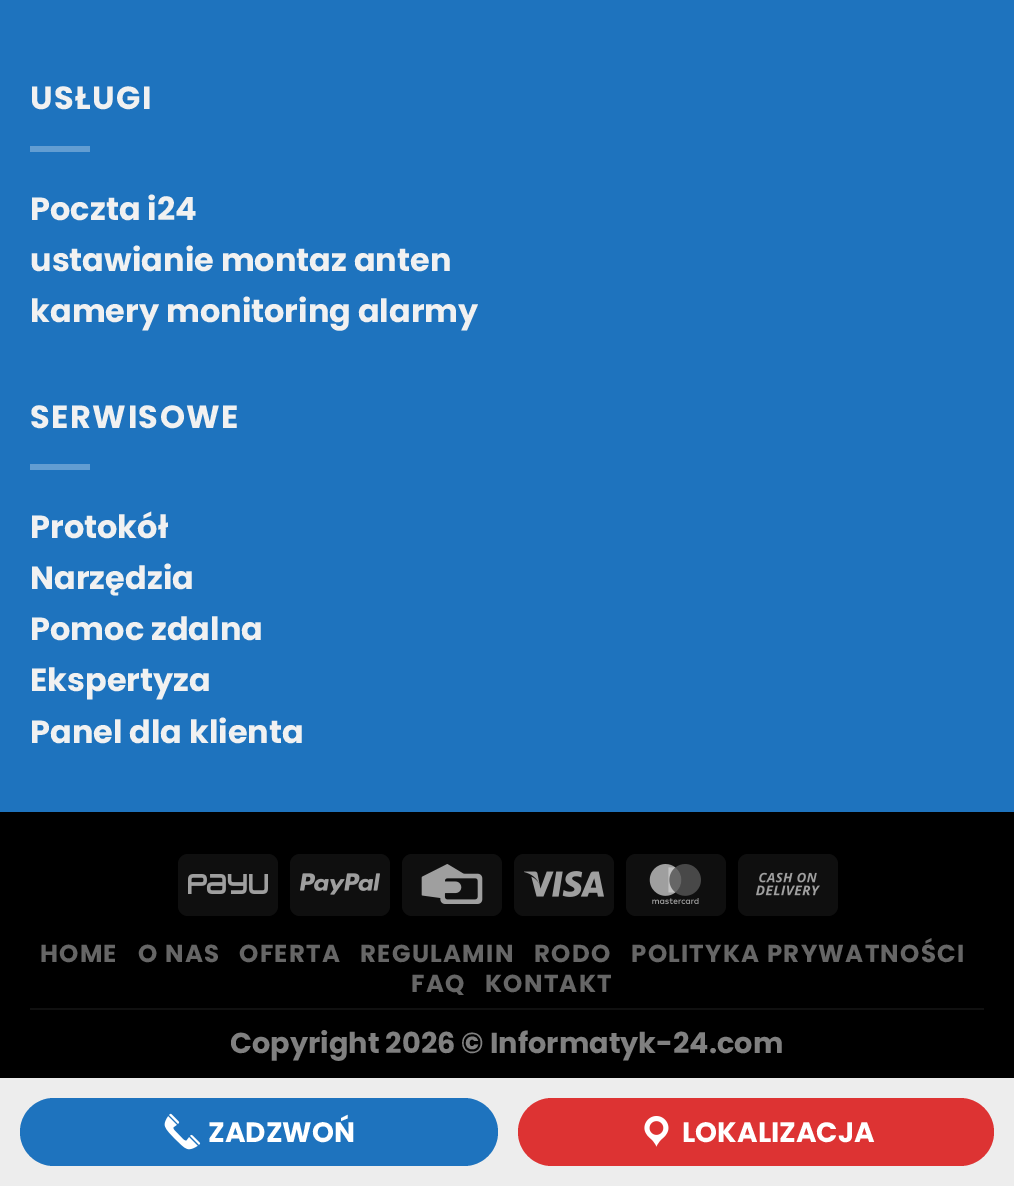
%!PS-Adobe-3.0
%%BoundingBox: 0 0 1014 1186
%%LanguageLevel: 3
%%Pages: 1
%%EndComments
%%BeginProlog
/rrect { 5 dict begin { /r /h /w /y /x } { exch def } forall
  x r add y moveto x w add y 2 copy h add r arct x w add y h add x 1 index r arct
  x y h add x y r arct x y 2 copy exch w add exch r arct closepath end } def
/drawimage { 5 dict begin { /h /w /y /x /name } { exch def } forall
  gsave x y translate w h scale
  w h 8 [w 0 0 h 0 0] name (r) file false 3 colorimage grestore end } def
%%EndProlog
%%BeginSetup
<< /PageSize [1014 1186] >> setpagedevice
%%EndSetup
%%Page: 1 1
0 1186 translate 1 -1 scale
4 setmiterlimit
0.118 0.451 0.745 setrgbcolor
0 0 1014 1186 rectfill
0.384 0.616 0.824 setrgbcolor
30 146 60 6 rectfill
30 464 60 6 rectfill
0 setgray
0 812 1014 266 rectfill
0.059 setgray
178 854 100 62 10 rrect fill
(images/1.raw) 188 874 80 20 drawimage
290 854 100 62 10 rrect fill
(images/2.raw) 300 873 80 22 drawimage
402 854 100 62 10 rrect fill
(images/3.raw) 421 864 62 40 drawimage
514 854 100 62 10 rrect fill
(images/4.raw) 524 871 80 26 drawimage
626 854 100 62 10 rrect fill
(images/5.raw) 649 864 52 40 drawimage
738 854 100 62 10 rrect fill
(images/6.raw) 756 872 64 24 drawimage
0.063 setgray
30 1008 954 2 rectfill
0.929 setgray
0 1078 1014 108 rectfill
0.118 0.451 0.745 setrgbcolor
20 1098 478 68 34 rrect fill
(images/7.raw) 164 1113 37 37 drawimage
0.867 0.2 0.2 setrgbcolor
518 1098 476 68 34 rrect fill
(images/8.raw) 644 1116 25 31 drawimage
/Poppins-Bold [32 0 0 -32 0 0] selectfont
0.945 setgray
30 109 moveto 1.5 0 (USŁUGI) ashow
30 220 moveto (Poczta i24) show
30 271 moveto (ustawianie montaz anten) show
30 322 moveto (kamery monitoring alarmy) show
30 428 moveto 1.5 0 (SERWISOWE) ashow
30 538 moveto (Protokół) show
30 589 moveto (Narzędzia) show
30 640 moveto (Pomoc zdalna) show
30 691 moveto (Ekspertyza) show
30 743 moveto (Panel dla klienta) show
/Poppins-Bold [24.5 0 0 -24.5 0 0] selectfont
0.4 setgray
40 962 moveto 1.25 0 (HOME) ashow
138 962 moveto 1.25 0 (O NAS) ashow
239 962 moveto 1.25 0 (OFERTA) ashow
360 962 moveto 1.25 0 (REGULAMIN) ashow
534 962 moveto 1.25 0 (RODO) ashow
631 962 moveto 1.25 0 (POLITYKA PRYWATNOŚCI) ashow
411 992 moveto 1.25 0 (FAQ) ashow
485 992 moveto 1.25 0 (KONTAKT) ashow
/Poppins-Bold [28.75 0 0 -28.75 0 0] selectfont
0.502 setgray
230 1053 moveto (Copyright 2026 © Informatyk-24.com) show
/Poppins-Bold [28 0 0 -28 0 0] selectfont
1 setgray
208 1142 moveto (ZADZWOŃ) show
682 1142 moveto (LOKALIZACJA) show
showpage
%%EOF
